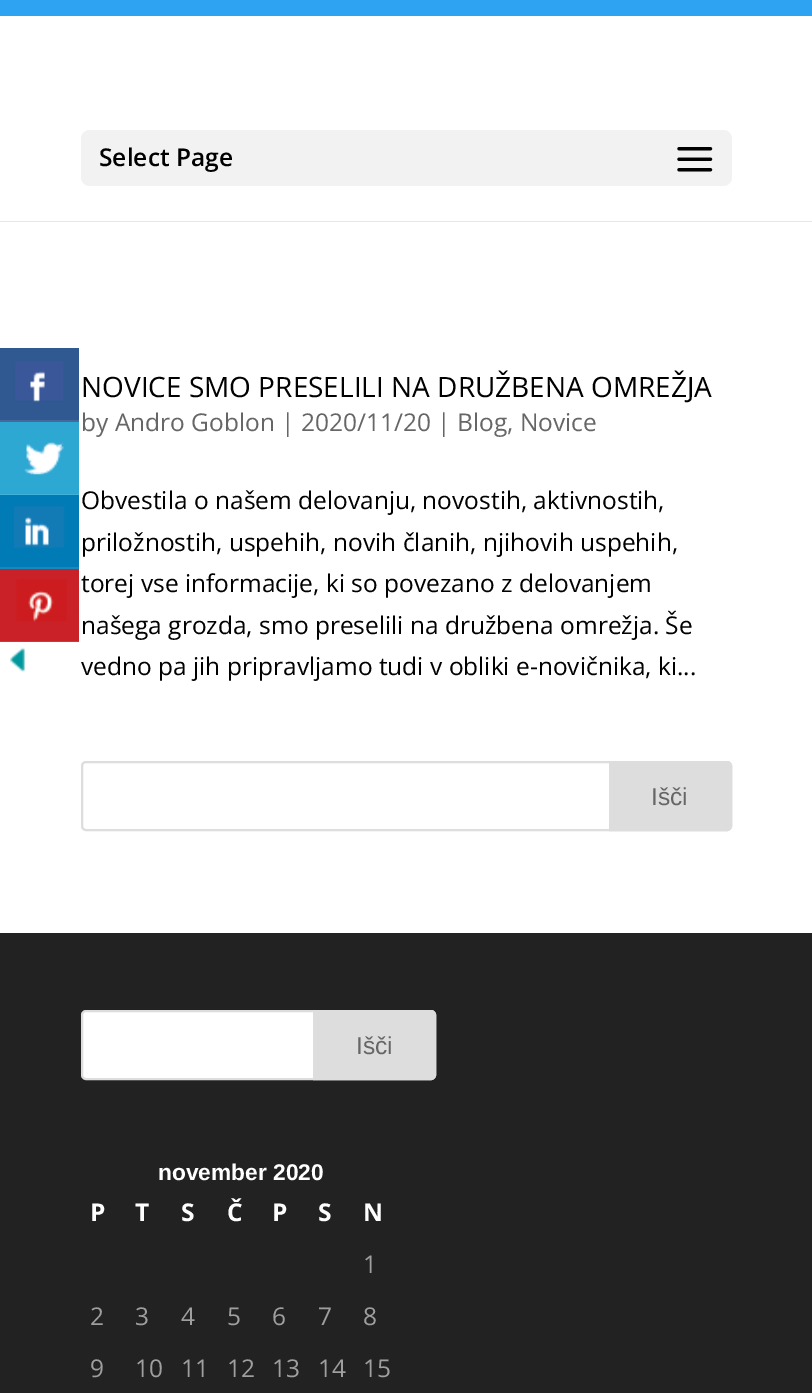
%!PS-Adobe-3.0
%%BoundingBox: 0 0 812 1393
%%LanguageLevel: 3
%%Pages: 1
%%EndComments
%%BeginProlog
/rrect { 5 dict begin { /r /h /w /y /x } { exch def } forall
  x r add y moveto x w add y 2 copy h add r arct x w add y h add x 1 index r arct
  x y h add x y r arct x y 2 copy exch w add exch r arct closepath end } def
/drawimage { 5 dict begin { /h /w /y /x /name } { exch def } forall
  gsave x y translate w h scale
  w h 8 [w 0 0 h 0 0] name (r) file false 3 colorimage grestore end } def
%%EndProlog
%%BeginSetup
<< /PageSize [812 1393] >> setpagedevice
%%EndSetup
%%Page: 1 1
0 1393 translate 1 -1 scale
4 setmiterlimit
1 setgray
0 0 812 1393 rectfill
0.188 0.345 0.569 setrgbcolor
0 348 79 72 rectfill
0.271 0.412 0.612 setrgbcolor
0 420 79 2 rectfill
(images/1.raw) 15 361 49 41 drawimage
0.173 0.659 0.824 setrgbcolor
0 422 79 72 rectfill
0.255 0.694 0.843 setrgbcolor
0 494 79 1 rectfill
(images/2.raw) 24 442 40 33 drawimage
0 0.482 0.714 setrgbcolor
0 495 79 72 rectfill
0.102 0.533 0.741 setrgbcolor
0 567 79 2 rectfill
(images/3.raw) 14 506 51 42 drawimage
0.792 0.125 0.153 setrgbcolor
0 569 79 72 rectfill
0.812 0.212 0.239 setrgbcolor
0 641 79 1 rectfill
(images/4.raw) 16 579 51 43 drawimage
(images/5.raw) 10 647 15 25 drawimage
0.18 0.639 0.949 setrgbcolor
0 0 812 16 rectfill
0.902 setgray
0 221 812 1 rectfill
0.949 setgray
81 130 651 56 9 rrect fill
(images/6.raw) 677 147 36 25 drawimage
0.867 setgray
2 setlinewidth
82 762 649 68 4 rrect stroke
newpath 610 762 moveto 727 762 lineto 729 762 731 764 731 766 curveto 731 826 lineto 731 828 729 830 727 830 curveto 610 830 lineto closepath gsave fill grestore
stroke
0.133 setgray
0 933 812 460 rectfill
1 setgray
82 1011 353 68 4 rrect gsave fill grestore
0.867 setgray
stroke
newpath 314 1011 moveto 431 1011 lineto 433 1011 435 1013 435 1015 curveto 435 1075 lineto 435 1077 433 1079 431 1079 curveto 314 1079 lineto closepath gsave fill grestore
stroke
/OpenSans-SemiBold [24.5 0 0 -24.5 0 0] selectfont
0 setgray
99 166 moveto (Select Page) show
/OpenSans-Regular [28 0 0 -28 0 0] selectfont
81 397 moveto (NOVICE SMO PRESELILI NA DRUŽBENA OMREŽJA) show
/OpenSans-Regular [24.5 0 0 -24.5 0 0] selectfont
0.4 setgray
81 431 moveto (by Andro Goblon | 2020/11/20 | Blog, Novice) show
0 setgray
81 509 moveto (Obvestila o našem delovanju, novostih, aktivnostih,) show
81 551 moveto (priložnostih, uspehih, novih članih, njihovih uspehih,) show
81 592 moveto (torej vse informacije, ki so povezano z delovanjem) show
81 634 moveto (našega grozda, smo preselili na družbena omrežja. Še) show
81 675 moveto (vedno pa jih pripravljamo tudi v obliki e-novičnika, ki...) show
/LiberationSans-Regular [24.5 0 0 -24.5 0 0] selectfont
0.4 setgray
651 805 moveto (Išči) show
356 1054 moveto (Išči) show
/LiberationSans-Bold [22.75 0 0 -22.75 0 0] selectfont
1 setgray
158 1180 moveto (november 2020) show
/OpenSans-Bold [24.5 0 0 -24.5 0 0] selectfont
90 1221 moveto (P) show
135 1221 moveto (T) show
181 1221 moveto (S) show
227 1221 moveto (Č) show
272 1221 moveto (P) show
318 1221 moveto (S) show
363 1221 moveto (N) show
/OpenSans-Regular [24.5 0 0 -24.5 0 0] selectfont
0.624 setgray
363 1273 moveto (1) show
90 1325 moveto (2) show
135 1325 moveto (3) show
181 1325 moveto (4) show
227 1325 moveto (5) show
272 1325 moveto (6) show
318 1325 moveto (7) show
363 1325 moveto (8) show
90 1377 moveto (9) show
135 1377 moveto (10) show
181 1377 moveto (11) show
227 1377 moveto (12) show
272 1377 moveto (13) show
318 1377 moveto (14) show
363 1377 moveto (15) show
showpage
%%EOF
